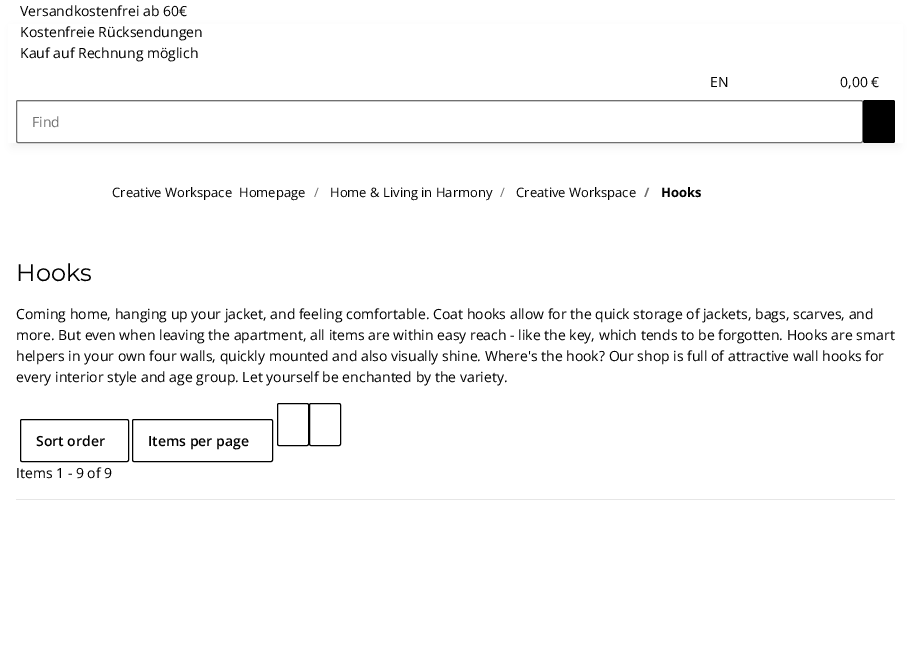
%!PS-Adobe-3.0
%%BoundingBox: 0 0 911 662
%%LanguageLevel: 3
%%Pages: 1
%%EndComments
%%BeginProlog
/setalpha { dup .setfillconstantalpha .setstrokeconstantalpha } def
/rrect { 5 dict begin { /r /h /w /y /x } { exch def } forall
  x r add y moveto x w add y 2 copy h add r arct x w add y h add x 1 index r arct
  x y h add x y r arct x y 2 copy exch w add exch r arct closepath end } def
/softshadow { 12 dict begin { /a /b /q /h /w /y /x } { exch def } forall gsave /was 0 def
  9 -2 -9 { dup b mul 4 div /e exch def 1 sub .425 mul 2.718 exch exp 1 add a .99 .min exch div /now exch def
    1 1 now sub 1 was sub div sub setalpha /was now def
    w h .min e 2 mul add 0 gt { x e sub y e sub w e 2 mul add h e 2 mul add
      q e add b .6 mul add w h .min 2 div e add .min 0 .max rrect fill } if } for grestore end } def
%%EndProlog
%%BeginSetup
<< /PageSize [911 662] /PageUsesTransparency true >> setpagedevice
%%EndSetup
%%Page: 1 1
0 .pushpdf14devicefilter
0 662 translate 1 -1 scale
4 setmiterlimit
1 setgray
0 0 911 662 rectfill
0 setgray
12 28 887 119 0 4.5 0.06 softshadow
1 setgray
8 24 895 119 rectfill
0.925 setgray
newpath 18 101 moveto 17 102 lineto 862 102 lineto 861 101 lineto closepath fill
0.439 setgray
16.5 100.5 846 42 1.5 rrect stroke
0 setgray
863 100 32 43 2 rrect fill
20.5 419.5 108 42 1.5 rrect stroke
132.5 419.5 140 42 1.5 rrect stroke
277.5 403.5 31 42 1.5 rrect stroke
309.5 403.5 31 42 1.5 rrect stroke
0.902 setgray
16 499 879 1 rectfill
/OpenSans-Regular [14 0 0 -14 0 0] selectfont
0 setgray
20 16 moveto (Versandkostenfrei ab 60€) show
20 37 moveto (Kostenfreie Rücksendungen) show
20 58 moveto (Kauf auf Rechnung möglich) show
710 87 moveto (EN) show
840 87 moveto (0,00 €) show
0.439 setgray
32 127 moveto (Find) show
/OpenSans-Regular [13 0 0 -13 0 0] selectfont
0 setgray
112 197 moveto (Creative Workspace) show
239 197 moveto (Homepage) show
0.439 setgray
314 197 moveto (/) show
0 setgray
330 197 moveto (Home & Living in Harmony) show
0.439 setgray
500 197 moveto (/) show
0 setgray
516 197 moveto (Creative Workspace) show
/OpenSans-Bold [13 0 0 -13 0 0] selectfont
0.439 setgray
644 197 moveto (/) show
0 setgray
661 197 moveto (Hooks) show
/Montserrat-Regular [24 0 0 -24 0 0] selectfont
16 281 moveto (Hooks) show
/OpenSans-Regular [14 0 0 -14 0 0] selectfont
16 319 moveto (Coming home, hanging up your jacket, and feeling comfortable. Coat hooks allow for the quick storage of jackets, bags, scarves, and) show
16 340 moveto (more. But even when leaving the apartment, all items are within easy reach - like the key, which tends to be forgotten. Hooks are smart) show
16 361 moveto (helpers in your own four walls, quickly mounted and also visually shine. Where's the hook? Our shop is full of attractive wall hooks for) show
16 382 moveto (every interior style and age group. Let yourself be enchanted by the variety.) show
/OpenSans-SemiBold [14 0 0 -14 0 0] selectfont
36 446 moveto (Sort order) show
148 446 moveto (Items per page) show
/OpenSans-Regular [14 0 0 -14 0 0] selectfont
16 478 moveto (Items 1 - 9 of 9) show
.poppdf14devicefilter showpage
%%EOF
